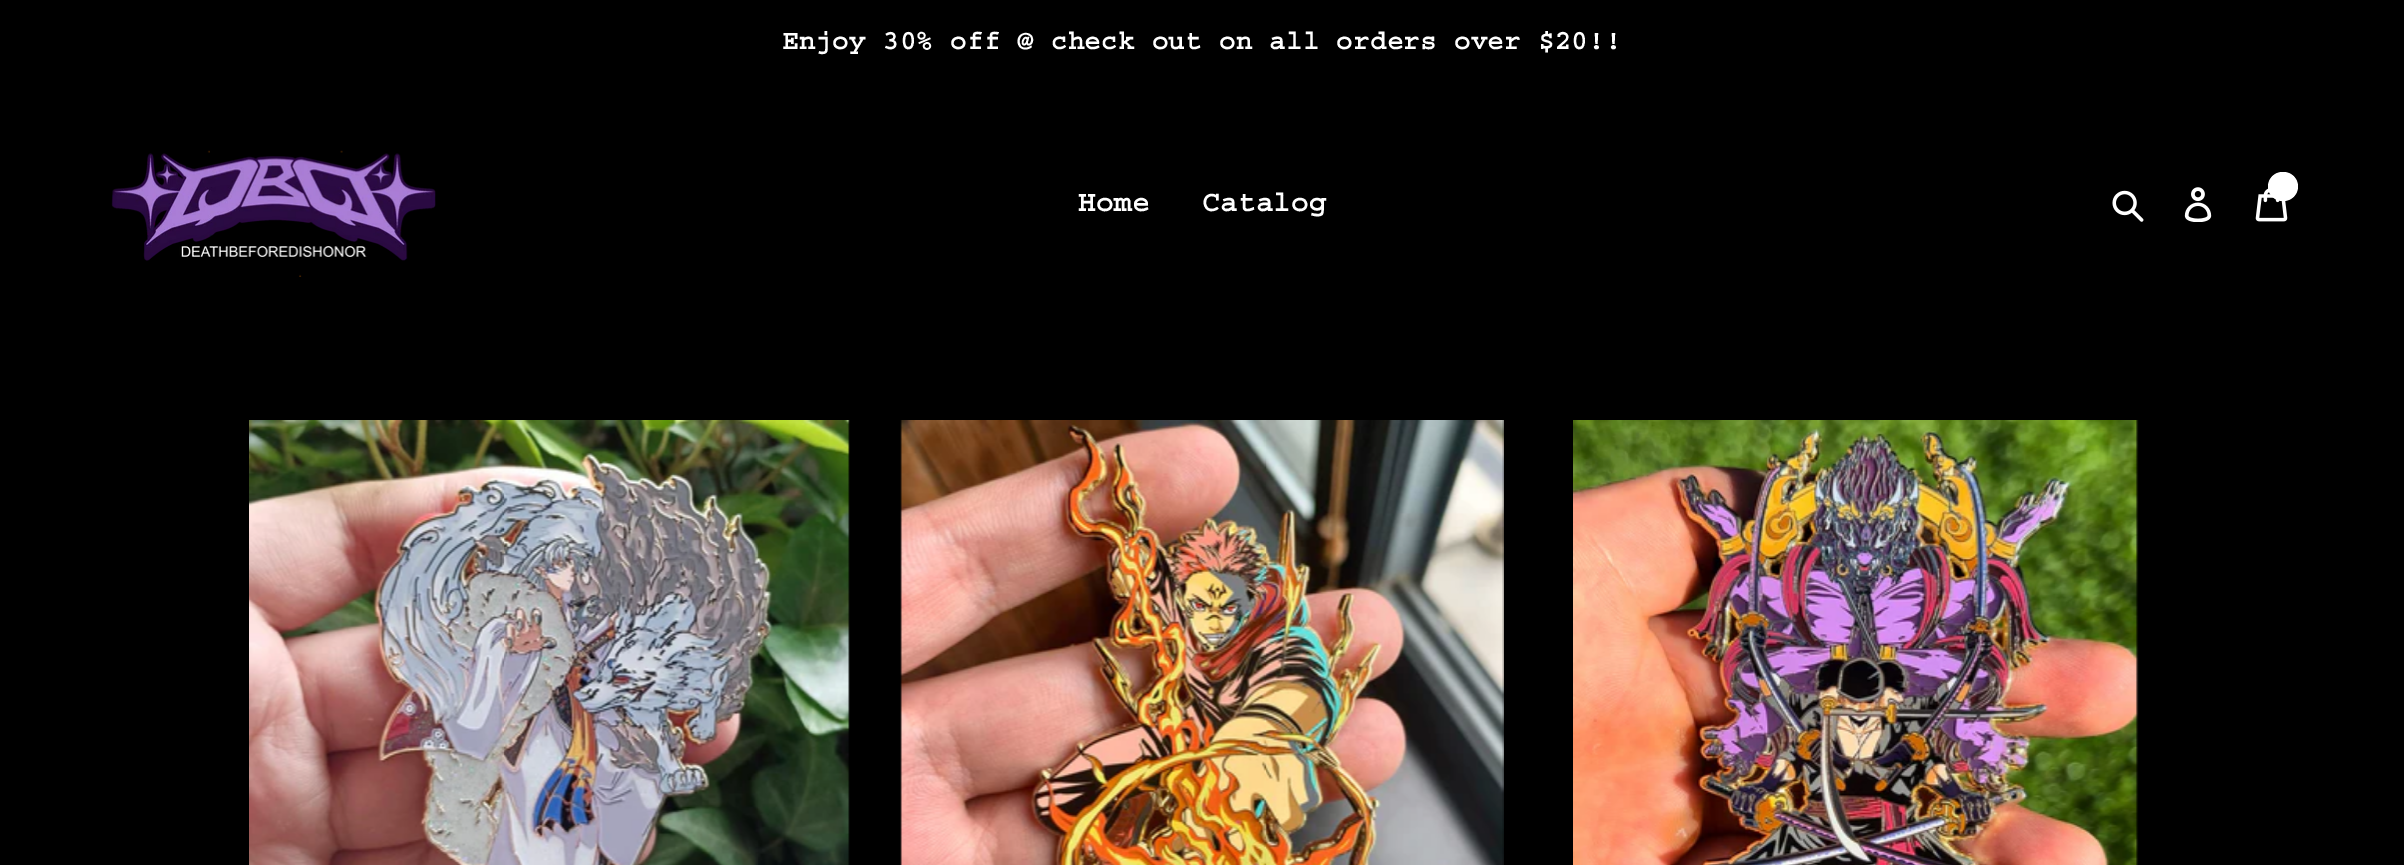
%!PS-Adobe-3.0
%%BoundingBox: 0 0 2404 865
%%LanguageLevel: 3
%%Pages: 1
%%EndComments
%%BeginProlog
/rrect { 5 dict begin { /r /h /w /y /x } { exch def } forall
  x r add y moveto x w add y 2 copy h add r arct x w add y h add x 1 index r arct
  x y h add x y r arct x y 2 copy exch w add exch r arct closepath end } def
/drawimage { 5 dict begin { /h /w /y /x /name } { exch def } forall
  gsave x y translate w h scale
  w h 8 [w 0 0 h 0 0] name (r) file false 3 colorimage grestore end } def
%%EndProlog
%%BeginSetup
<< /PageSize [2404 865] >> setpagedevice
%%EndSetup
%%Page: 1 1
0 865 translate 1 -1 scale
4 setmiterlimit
0 setgray
0 0 2404 865 rectfill
(images/1.raw) 111 150 325 127 drawimage
(images/2.raw) 2112 190 32 32 drawimage
(images/3.raw) 2184 187 28 35 drawimage
(images/4.raw) 2255 188 33 34 drawimage
1 setgray
2268 172 30 29 14.5 rrect fill
(images/5.raw) 249 420 601 445 drawimage
(images/6.raw) 900 420 604 445 drawimage
(images/7.raw) 1573 420 566 445 drawimage
/Courier-Bold [28 0 0 -28 0 0] selectfont
782 49 moveto (Enjoy 30% off @ check out on all orders over $20!!) show
/Courier-Bold [29.75 0 0 -29.75 0 0] selectfont
1078 211 moveto (Home) show
1202 211 moveto (Catalog) show
showpage
%%EOF
